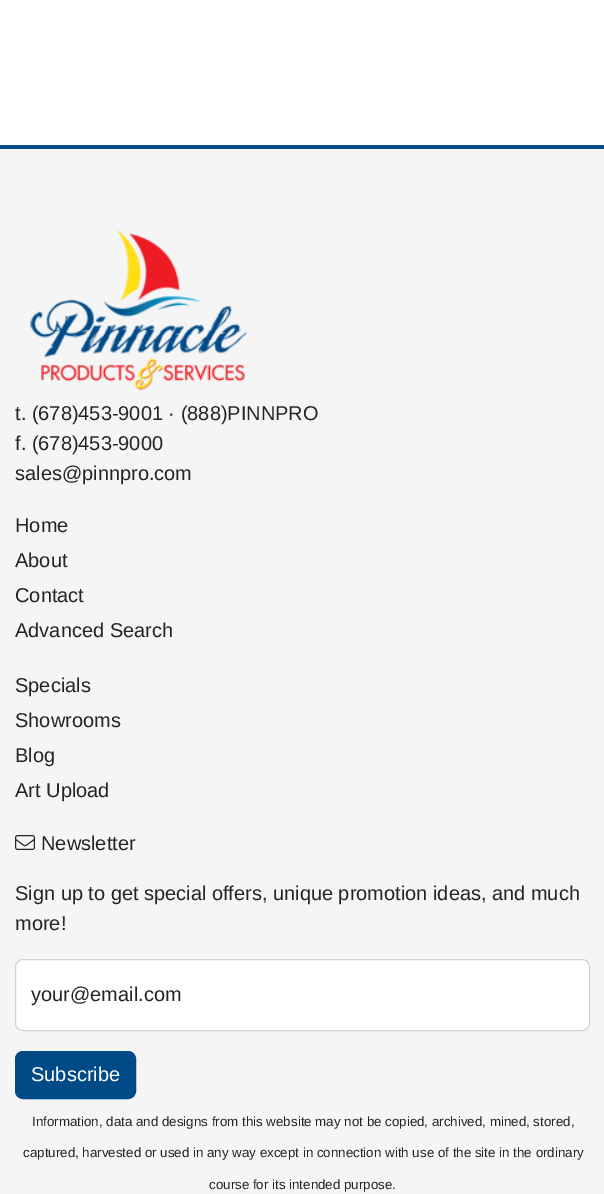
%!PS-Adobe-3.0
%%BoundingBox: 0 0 604 1194
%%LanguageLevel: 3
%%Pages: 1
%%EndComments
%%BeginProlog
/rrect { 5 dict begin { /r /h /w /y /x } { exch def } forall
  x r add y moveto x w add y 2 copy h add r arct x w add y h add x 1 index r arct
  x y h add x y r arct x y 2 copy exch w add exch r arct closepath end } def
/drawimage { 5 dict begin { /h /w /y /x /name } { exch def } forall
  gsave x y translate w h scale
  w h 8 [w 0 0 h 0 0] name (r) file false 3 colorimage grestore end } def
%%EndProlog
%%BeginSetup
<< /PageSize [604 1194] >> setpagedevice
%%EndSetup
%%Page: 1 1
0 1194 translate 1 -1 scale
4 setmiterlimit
1 setgray
0 0 604 1194 rectfill
0.961 setgray
0 149 604 1045 rectfill
0 0.29 0.529 setrgbcolor
0 145 604 4 rectfill
(images/1.raw) 29 229 219 162 drawimage
(images/2.raw) 15 835 20 15 drawimage
1 setgray
16 960 573 70 6 rrect fill
0.808 0.831 0.855 setrgbcolor
15.5 959.5 574 71 7.5 rrect stroke
0 0.29 0.529 setrgbcolor
15.5 1051.5 120 47 7.5 rrect gsave fill grestore
stroke
/LiberationSans-Regular [20 0 0 -20 0 0] selectfont
0.141 setgray
15 420 moveto (t. \(678\)453-9001 · \(888\)PINNPRO) show
15 450 moveto (f. \(678\)453-9000) show
15 480 moveto (sales@pinnpro.com) show
15 532 moveto (Home) show
15 567 moveto (About) show
15 602 moveto (Contact) show
15 637 moveto (Advanced Search) show
15 692 moveto (Specials) show
15 727 moveto (Showrooms) show
15 762 moveto (Blog) show
15 797 moveto (Art Upload) show
41 850 moveto (Newsletter) show
15 900 moveto (Sign up to get special offers, unique promotion ideas, and much) show
15 930 moveto (more!) show
31 1001 moveto (your@email.com) show
1 setgray
31 1081 moveto (Subscribe) show
/LiberationSans-Regular [13.35 0 0 -13.35 0 0] selectfont
0.141 setgray
32 1126 moveto (Information, data and designs from this website may not be copied, archived, mined, stored,) show
23 1157 moveto (captured, harvested or used in any way except in connection with use of the site in the ordinary) show
209 1189 moveto (course for its intended purpose.) show
showpage
%%EOF
